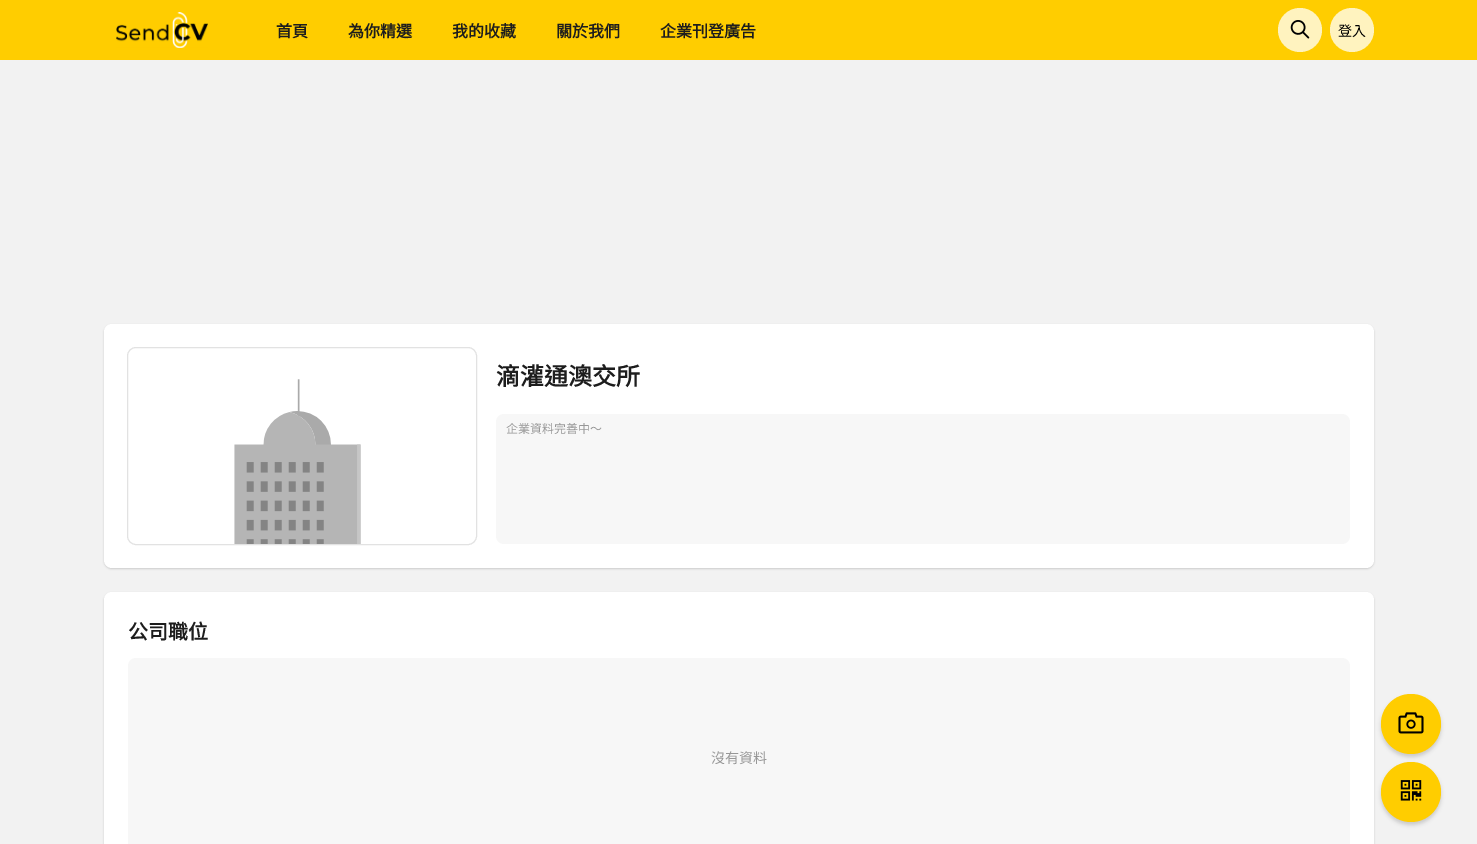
%!PS-Adobe-3.0
%%BoundingBox: 0 0 1477 844
%%LanguageLevel: 3
%%Pages: 1
%%EndComments
%%BeginProlog
/setalpha { dup .setfillconstantalpha .setstrokeconstantalpha } def
/rrect { 5 dict begin { /r /h /w /y /x } { exch def } forall
  x r add y moveto x w add y 2 copy h add r arct x w add y h add x 1 index r arct
  x y h add x y r arct x y 2 copy exch w add exch r arct closepath end } def
/softshadow { 12 dict begin { /a /b /q /h /w /y /x } { exch def } forall gsave /was 0 def
  9 -2 -9 { dup b mul 4 div /e exch def 1 sub .425 mul 2.718 exch exp 1 add a .99 .min exch div /now exch def
    1 1 now sub 1 was sub div sub setalpha /was now def
    w h .min e 2 mul add 0 gt { x e sub y e sub w e 2 mul add h e 2 mul add
      q e add b .6 mul add w h .min 2 div e add .min 0 .max rrect fill } if } for grestore end } def
/drawimage { 5 dict begin { /h /w /y /x /name } { exch def } forall
  gsave x y translate w h scale
  w h 8 [w 0 0 h 0 0] name (r) file false 3 colorimage grestore end } def
%%EndProlog
%%BeginSetup
<< /PageSize [1477 844] /PageUsesTransparency true >> setpagedevice
%%EndSetup
%%Page: 1 1
0 .pushpdf14devicefilter
0 844 translate 1 -1 scale
4 setmiterlimit
0.949 setgray
0 0 1477 844 rectfill
1 0.804 0 setrgbcolor
0 0 1477 60 rectfill
(images/1.raw) 116 12 92 36 drawimage
1 0.953 0.749 setrgbcolor
newpath 1300 30 22 0 360 arc closepath fill
(images/2.raw) 1290 20 20 19 drawimage
newpath 1352 30 22 0 360 arc closepath fill
0 setgray
104 325 1270 244 8 1 0.16 softshadow
1 setgray
104 324 1270 244 8 rrect fill
0.886 setgray
127.5 347.5 349 197 8.5 rrect stroke
(images/3.raw) 234 379 127 165 drawimage
0.969 setgray
496 414 854 130 8 rrect fill
0 setgray
104 593 1270 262 8 1 0.16 softshadow
1 setgray
104 592 1270 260 8 rrect fill
0.969 setgray
128 658 1222 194 8 rrect fill
0 setgray
1381 697 60 60 30 2 0.16 softshadow
1 0.804 0 setrgbcolor
newpath 1411 724 30 0 360 arc closepath fill
(images/4.raw) 1398 712 26 22 drawimage
0 setgray
1381 765 60 60 30 2 0.16 softshadow
1 0.804 0 setrgbcolor
newpath 1411 792 30 0 360 arc closepath fill
(images/5.raw) 1400 780 22 21 drawimage
/NotoSansHK-Bold [16 0 0 -16 0 0] selectfont
0.114 setgray
276 37 moveto (首頁) show
348 37 moveto (為你精選) show
452 37 moveto (我的收藏) show
556 37 moveto (關於我們) show
660 37 moveto (企業刊登廣告) show
/NotoSansHK-Thin [14 0 0 -14 0 0] selectfont
0 setgray
1338 36 moveto (登入) show
/NotoSansHK-Bold [24 0 0 -24 0 0] selectfont
0.114 setgray
496 385 moveto (滴灌通澳交所) show
/NotoSansHK-Thin [12 0 0 -12 0 0] selectfont
0.592 setgray
506 433 moveto (企業資料完善中～) show
/NotoSansHK-Bold [20 0 0 -20 0 0] selectfont
0.114 setgray
128 639 moveto (公司職位) show
/NotoSansHK-Thin [14 0 0 -14 0 0] selectfont
0.592 setgray
711 763 moveto (沒有資料) show
.poppdf14devicefilter showpage
%%EOF
